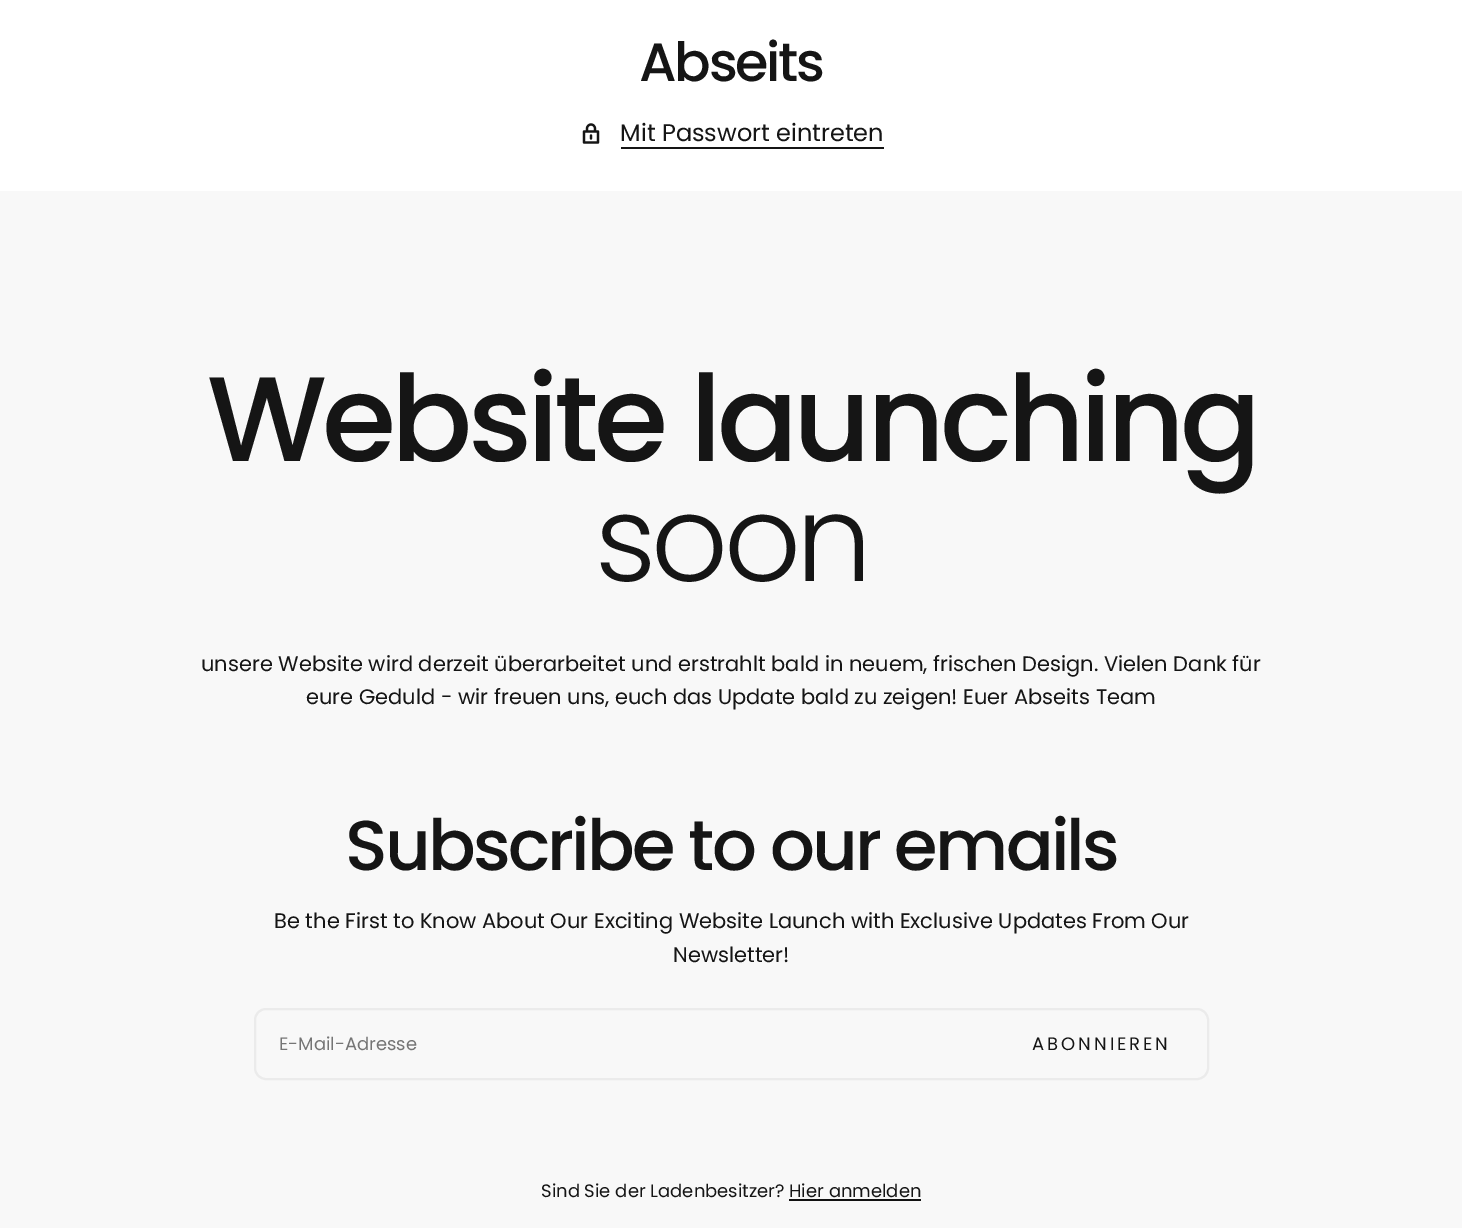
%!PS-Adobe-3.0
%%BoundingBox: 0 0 1462 1228
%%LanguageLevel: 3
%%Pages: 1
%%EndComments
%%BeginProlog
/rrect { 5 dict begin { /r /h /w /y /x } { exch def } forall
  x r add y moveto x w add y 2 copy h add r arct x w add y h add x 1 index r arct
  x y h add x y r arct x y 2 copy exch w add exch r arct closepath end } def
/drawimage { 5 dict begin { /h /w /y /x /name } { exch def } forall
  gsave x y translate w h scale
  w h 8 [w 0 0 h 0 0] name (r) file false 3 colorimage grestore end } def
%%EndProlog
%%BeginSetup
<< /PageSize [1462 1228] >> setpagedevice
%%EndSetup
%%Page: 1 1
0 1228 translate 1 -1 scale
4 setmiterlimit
1 setgray
0 0 1462 1228 rectfill
(images/1.raw) 582 123 18 21 drawimage
0.082 setgray
621 147 263 2 rectfill
0.973 setgray
0 191 1462 1037 rectfill
0.922 setgray
2 setlinewidth
255 1009 953 70 11 rrect stroke
0.067 setgray
789 1199 132 2 rectfill
/Poppins-Medium [54 0 0 -54 0 0] selectfont
0.082 setgray
639 81 moveto -2.25 0 (Abseits) ashow
/Poppins-Regular [24 0 0 -24 0 0] selectfont
620 141 moveto (Mit Passwort eintreten) show
/Poppins-Medium [120 0 0 -120 0 0] selectfont
207 461 moveto -4.75 0 (Website launching) ashow
/Poppins-Light [120 0 0 -120 0 0] selectfont
595 581 moveto -4.75 0 (soon) ashow
/Poppins-Regular [21 0 0 -21 0 0] selectfont
201 671 moveto (unsere Website wird derzeit überarbeitet und erstrahlt bald in neuem, frischen Design. Vielen Dank für) show
306 704 moveto (eure Geduld - wir freuen uns, euch das Update bald zu zeigen! Euer Abseits Team) show
/Poppins-Medium [70.5 0 0 -70.5 0 0] selectfont
345 870 moveto -2.8 0 (Subscribe to our emails) ashow
/Poppins-Regular [21 0 0 -21 0 0] selectfont
274 928 moveto (Be the First to Know About Our Exciting Website Launch with Exclusive Updates From Our) show
673 962 moveto (Newsletter!) show
/Poppins-Regular [18 0 0 -18 0 0] selectfont
0.459 setgray
279 1050 moveto (E-Mail-Adresse) show
0.082 setgray
1032 1050 moveto 3 0 (ABONNIEREN) ashow
541 1197 moveto (Sind Sie der Ladenbesitzer? Hier anmelden) show
showpage
%%EOF
